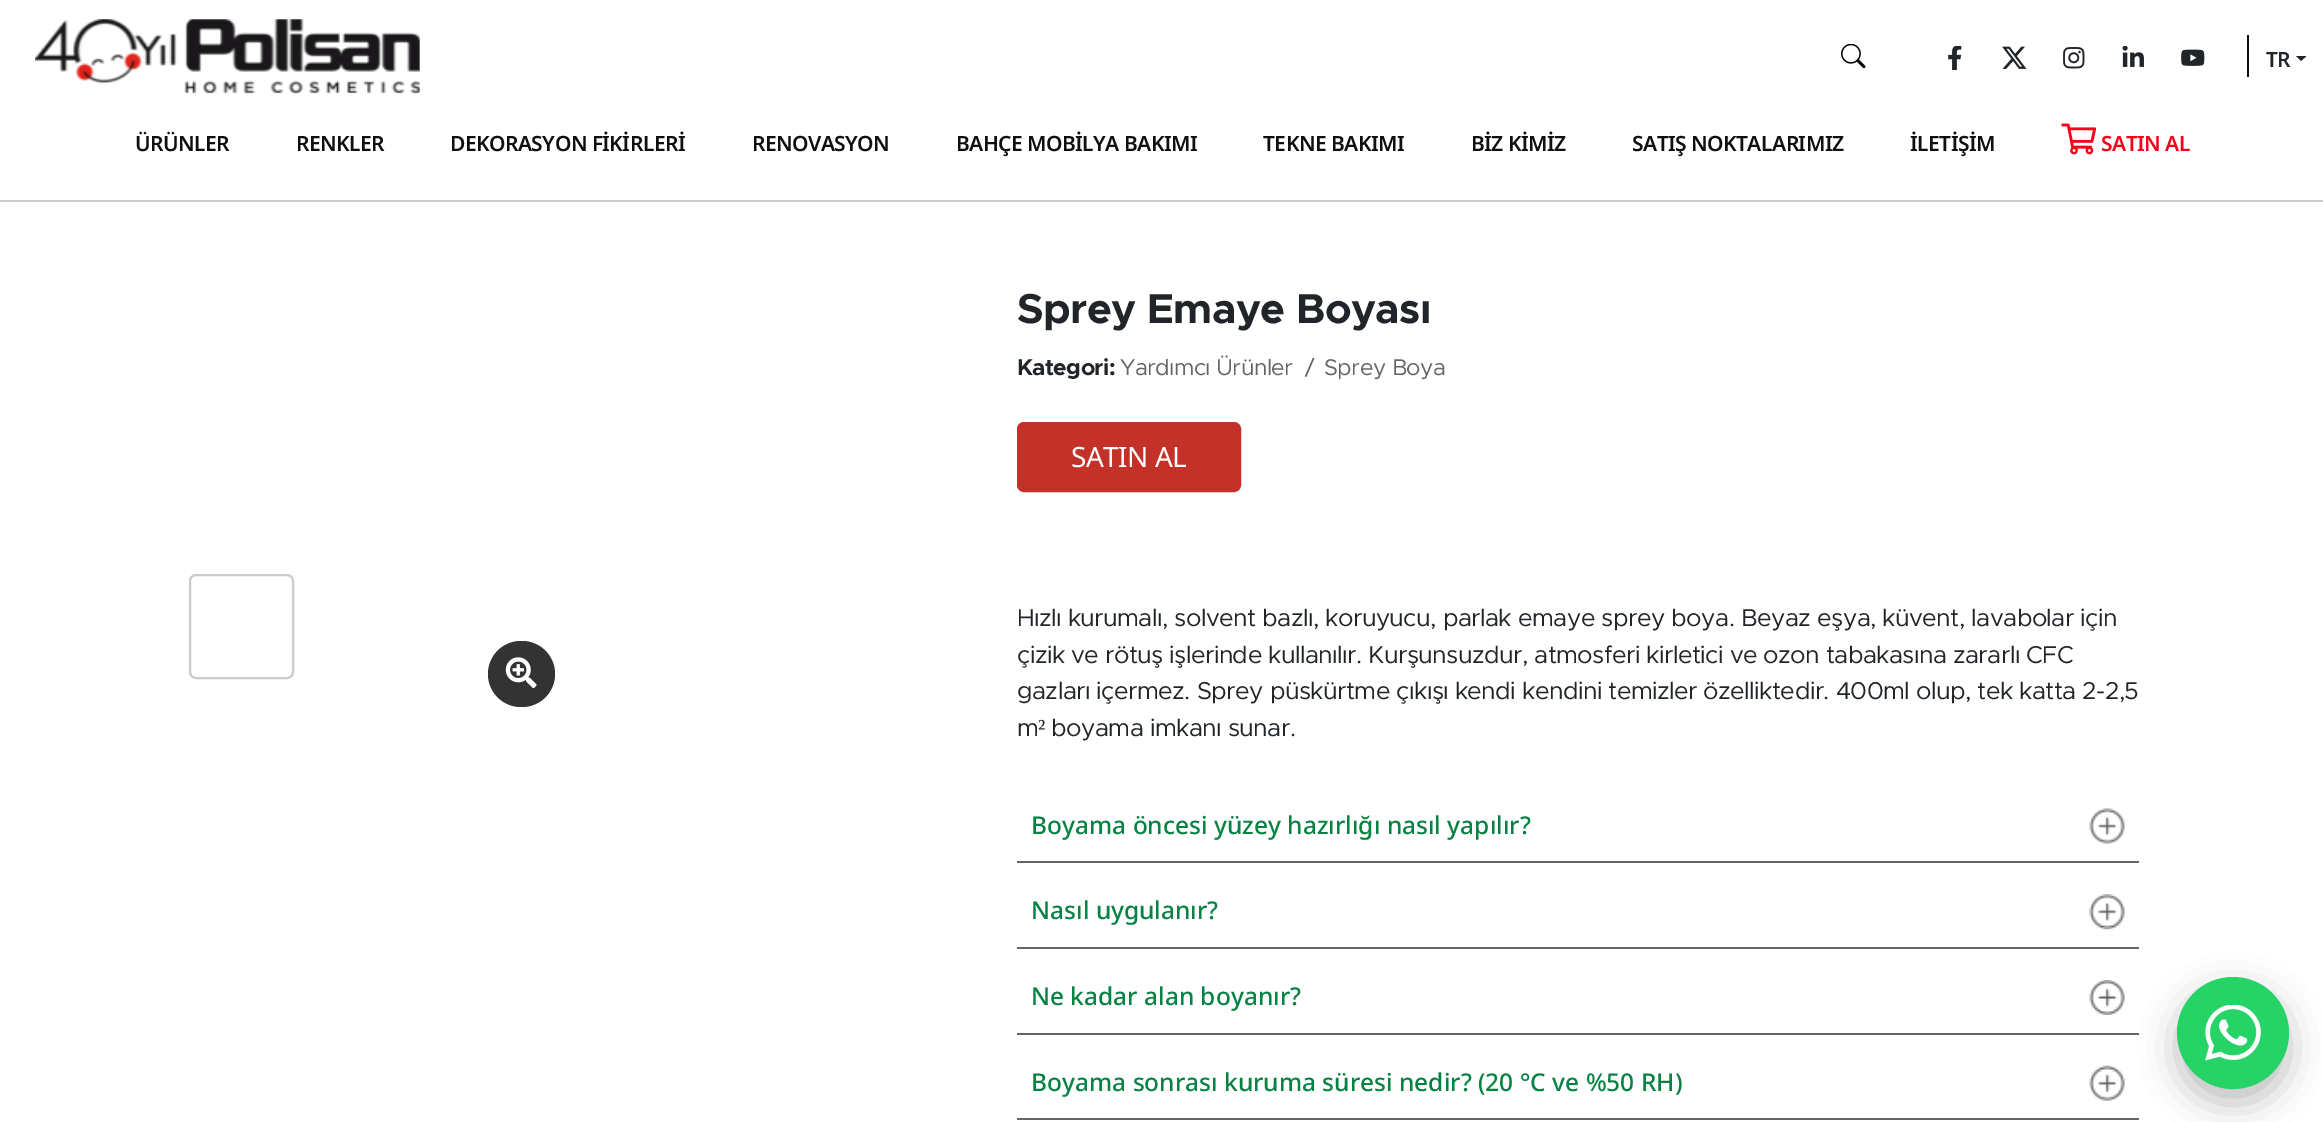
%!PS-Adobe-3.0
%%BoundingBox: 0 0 2323 1122
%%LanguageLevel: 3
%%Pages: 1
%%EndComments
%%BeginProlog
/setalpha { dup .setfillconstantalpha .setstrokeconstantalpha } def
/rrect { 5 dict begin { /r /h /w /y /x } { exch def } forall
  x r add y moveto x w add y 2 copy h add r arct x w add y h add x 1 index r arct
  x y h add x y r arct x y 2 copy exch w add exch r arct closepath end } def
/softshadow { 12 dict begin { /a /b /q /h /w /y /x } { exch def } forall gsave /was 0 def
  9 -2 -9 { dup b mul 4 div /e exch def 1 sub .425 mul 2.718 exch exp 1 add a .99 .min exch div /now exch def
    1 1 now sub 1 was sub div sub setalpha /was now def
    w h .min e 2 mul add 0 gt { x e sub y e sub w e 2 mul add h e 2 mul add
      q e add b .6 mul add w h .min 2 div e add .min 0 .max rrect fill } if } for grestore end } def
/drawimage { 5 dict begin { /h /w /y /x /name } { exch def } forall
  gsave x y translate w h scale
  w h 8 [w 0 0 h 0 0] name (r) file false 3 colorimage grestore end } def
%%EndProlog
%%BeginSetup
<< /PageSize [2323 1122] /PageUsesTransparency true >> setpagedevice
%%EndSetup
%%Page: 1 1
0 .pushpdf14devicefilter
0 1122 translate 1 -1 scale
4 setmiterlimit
1 setgray
0 0 2323 1122 rectfill
0.8 setgray
0 200 2323 2 rectfill
(images/1.raw) 35 19 385 75 drawimage
(images/2.raw) 1841 44 25 24 drawimage
(images/3.raw) 1948 46 14 24 drawimage
(images/4.raw) 2002 46 25 23 drawimage
(images/5.raw) 2063 47 22 22 drawimage
(images/6.raw) 2122 46 22 21 drawimage
(images/7.raw) 2181 49 24 17 drawimage
0.059 setgray
2247 35 2 42 rectfill
0.129 0.145 0.161 setrgbcolor
newpath 2296 56 moveto 2306.5 56 lineto 2301 61 lineto closepath fill
(images/8.raw) 2061 123 36 32 drawimage
0.8 setgray
2 setlinewidth
190 575 103 103 6 rrect stroke
0.2 setgray
488 641 67 66 33 rrect fill
(images/9.raw) 505 657 32 32 drawimage
0.765 0.192 0.161 setrgbcolor
1018 423 222 68 6 rrect gsave fill grestore
stroke
0.4 setgray
1017 861 1122 2 rectfill
(images/10.raw) 2089 808 36 36 drawimage
1017 947 1122 2 rectfill
(images/11.raw) 2089 894 36 36 drawimage
1017 1033 1122 2 rectfill
(images/12.raw) 2089 980 36 35 drawimage
1017 1118 1122 2 rectfill
(images/13.raw) 2089 1065 36 36 drawimage
0 setgray
2177 991 112 112 56 17.5 0.25 softshadow
0.145 0.827 0.4 setrgbcolor
newpath 2233 1033 56 0 360 arc closepath fill
(images/14.raw) 2205 1005 56 56 drawimage
/NotoSans-SemiBold [21 0 0 -21 0 0] selectfont
0.129 0.145 0.161 setrgbcolor
2266 67 moveto -0.56 0 (TR) ashow
0.059 setgray
135 151 moveto -0.56 0 (ÜRÜNLER) ashow
296 151 moveto -0.56 0 (RENKLER) ashow
450 151 moveto -0.56 0 (DEKORASYON FİKİRLERİ) ashow
752 151 moveto -0.56 0 (RENOVASYON) ashow
956 151 moveto -0.56 0 (BAHÇE MOBİLYA BAKIMI) ashow
1263 151 moveto -0.56 0 (TEKNE BAKIMI) ashow
1471 151 moveto -0.56 0 (BİZ KİMİZ) ashow
1632 151 moveto -0.56 0 (SATIŞ NOKTALARIMIZ) ashow
1910 151 moveto -0.56 0 (İLETİŞİM) ashow
0.973 0 0.098 setrgbcolor
2101 151 moveto -0.56 0 (SATIN AL) ashow
/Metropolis-Bold [42 0 0 -42 0 0] selectfont
0.129 0.145 0.161 setrgbcolor
1017 323 moveto -0.56 0 (Sprey Emaye Boyası) ashow
/Metropolis-Bold [22.75 0 0 -22.75 0 0] selectfont
1017 375 moveto -0.56 0 (Kategori:) ashow
/Metropolis-Regular [22.75 0 0 -22.75 0 0] selectfont
0.392 setgray
1120 375 moveto -0.56 0 (Yardımcı Ürünler) ashow
1305 375 moveto -0.56 0 (/) ashow
1324 375 moveto -0.56 0 (Sprey Boya) ashow
/NotoSans-Regular [28 0 0 -28 0 0] selectfont
1 setgray
1071 467 moveto -0.56 0 (SATIN AL) ashow
/Metropolis-Regular [24.5 0 0 -24.5 0 0] selectfont
0.129 0.145 0.161 setrgbcolor
1017 626 moveto -0.56 0 (Hızlı kurumalı, solvent bazlı, koruyucu, parlak emaye sprey boya. Beyaz eşya, küvent, lavabolar için) ashow
1017 663 moveto -0.56 0 (çizik ve rötuş işlerinde kullanılır. Kurşunsuzdur, atmosferi kirletici ve ozon tabakasına zararlı CFC) ashow
1017 699 moveto -0.56 0 (gazları içermez. Sprey püskürtme çıkışı kendi kendini temizler özelliktedir. 400ml olup, tek katta 2-2,5) ashow
1017 736 moveto -0.56 0 (m) ashow
/LiberationSerif-Regular [24.5 0 0 -24.5 0 0] selectfont
1038 736 moveto -0.56 0 (²) ashow
/Metropolis-Regular [24.5 0 0 -24.5 0 0] selectfont
1051 736 moveto -0.56 0 (boyama imkanı sunar.) ashow
/NotoSans-Medium [24.5 0 0 -24.5 0 0] selectfont
0.024 0.51 0.263 setrgbcolor
1031 834 moveto (Boyama öncesi yüzey hazırlığı nasıl yapılır?) show
1031 919 moveto (Nasıl uygulanır?) show
1031 1005 moveto (Ne kadar alan boyanır?) show
1031 1091 moveto (Boyama sonrası kuruma süresi nedir? \(20 °C ve %50 RH\)) show
.poppdf14devicefilter showpage
%%EOF
